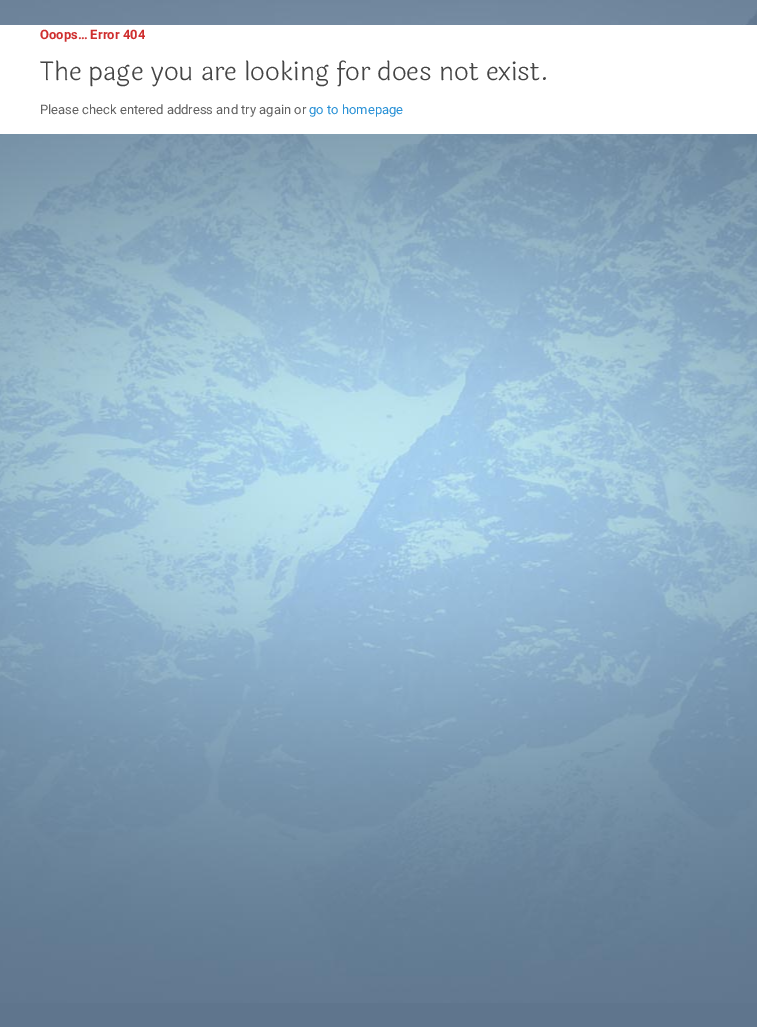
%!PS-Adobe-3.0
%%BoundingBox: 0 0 757 1027
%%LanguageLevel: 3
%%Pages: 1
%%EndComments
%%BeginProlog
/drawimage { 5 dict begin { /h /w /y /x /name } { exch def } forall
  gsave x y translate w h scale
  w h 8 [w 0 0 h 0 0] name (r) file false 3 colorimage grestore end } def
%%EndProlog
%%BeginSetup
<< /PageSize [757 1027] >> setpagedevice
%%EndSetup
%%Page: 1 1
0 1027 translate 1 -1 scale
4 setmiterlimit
0.373 0.459 0.553 setrgbcolor
0 0 757 1027 rectfill
(images/1.raw) 0 0 757 1003 drawimage
1 setgray
0 25 757 109 rectfill
/Roboto-Bold [13 0 0 -13 0 0] selectfont
0.812 0.18 0.18 setrgbcolor
40 39 moveto (Ooops… Error 404) show
/Laila-Light [26 0 0 -26 0 0] selectfont
0.267 setgray
40 80 moveto (The page you are looking for does not exist.) show
/Roboto-Regular [13 0 0 -13 0 0] selectfont
0.384 setgray
40 114 moveto (Please check entered address and try again or) show
0.161 0.569 0.839 setrgbcolor
309 114 moveto (go to homepage) show
showpage
%%EOF
